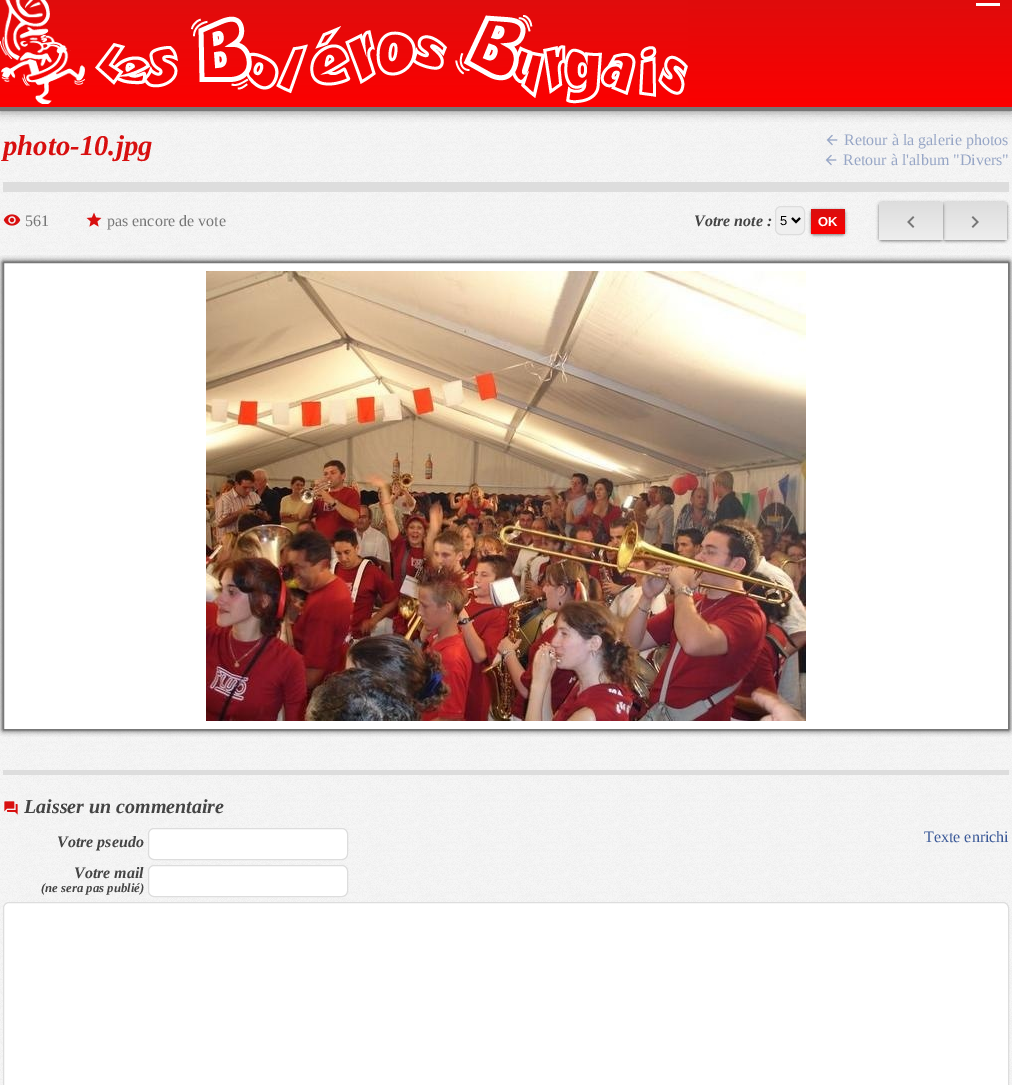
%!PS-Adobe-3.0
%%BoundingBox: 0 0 1012 1085
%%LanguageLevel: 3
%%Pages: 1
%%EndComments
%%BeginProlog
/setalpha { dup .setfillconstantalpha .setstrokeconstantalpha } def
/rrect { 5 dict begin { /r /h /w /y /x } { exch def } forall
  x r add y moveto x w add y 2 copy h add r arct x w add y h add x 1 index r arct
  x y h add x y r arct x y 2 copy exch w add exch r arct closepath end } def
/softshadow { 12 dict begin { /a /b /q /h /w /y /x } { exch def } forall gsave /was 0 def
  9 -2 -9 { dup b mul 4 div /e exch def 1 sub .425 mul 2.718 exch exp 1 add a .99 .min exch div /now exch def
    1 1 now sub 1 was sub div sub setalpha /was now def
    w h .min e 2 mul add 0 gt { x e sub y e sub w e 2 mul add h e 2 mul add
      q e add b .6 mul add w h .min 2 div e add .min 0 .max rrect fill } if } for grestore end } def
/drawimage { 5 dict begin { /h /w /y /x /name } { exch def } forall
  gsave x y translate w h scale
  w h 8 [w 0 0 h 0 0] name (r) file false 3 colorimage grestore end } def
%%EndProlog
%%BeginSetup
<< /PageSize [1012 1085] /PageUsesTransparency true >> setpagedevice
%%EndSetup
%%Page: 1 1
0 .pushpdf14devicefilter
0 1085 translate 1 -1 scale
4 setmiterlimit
1 setgray
0 0 1012 1085 rectfill
(images/1.raw) 0 111 1012 974 drawimage
0.467 setgray
0 -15 1012 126 0 5 1 softshadow
gsave newpath 0 0 moveto 1012 0 lineto 1012 107 lineto 0 107 lineto closepath clip newpath
<< /ShadingType 2 /ColorSpace /DeviceRGB /Coords [506 -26 506 107] /Extend [true true] /Function << /FunctionType 2 /Domain [0 1] /C0 [0.847 0.059 0.059] /C1 [0.988 0 0] /N 1 >> >> shfill grestore
1 setgray
976 3 24 3 rectfill
0.467 setgray
0 107 1012 4 rectfill
(images/2.raw) 0 0 688 104 drawimage
(images/3.raw) 826 134 12 12 drawimage
(images/4.raw) 825 154 12 12 drawimage
0.867 setgray
3 182 1006 10 rectfill
(images/5.raw) 3 214 18 12 drawimage
(images/6.raw) 86 212 16 15 drawimage
0.937 setgray
775.5 206.5 29 28 5.5 rrect gsave fill grestore
0.867 setgray
stroke
0 setgray
2 setlinewidth
newpath 792 218 moveto 796 222 lineto 800 218 lineto stroke
811 210 34 25 3 1.5 0.5 softshadow
gsave 811 209 34 25 3 rrect clip newpath
<< /ShadingType 2 /ColorSpace /DeviceRGB /Coords [828 209 828 234] /Extend [true true] /Function << /FunctionType 2 /Domain [0 1] /C0 [0.847 0.059 0.059] /C1 [0.988 0 0] /N 1 >> >> shfill grestore
943 203 64 38 3 1.5 0.5 softshadow
gsave newpath 943 202 moveto 1004 202 lineto 1005.5 202 1007 203.5 1007 205 curveto 1007 237 lineto 1007 238.5 1005.5 240 1004 240 curveto 943 240 lineto closepath clip newpath
<< /ShadingType 2 /ColorSpace /DeviceRGB /Coords [975 202 975 240] /Extend [true true] /Function << /FunctionType 2 /Domain [0 1] /C0 [0.867 0.867 0.867] /C1 [0.933 0.933 0.933] /N 1 >> >> shfill grestore
879 203 64 38 3 1.5 0.5 softshadow
gsave newpath 882 202 moveto 943 202 lineto 943 240 lineto 882 240 lineto 880.5 240 879 238.5 879 237 curveto 879 205 lineto 879 203.5 880.5 202 882 202 curveto closepath clip newpath
<< /ShadingType 2 /ColorSpace /DeviceRGB /Coords [911 202 911 240] /Extend [true true] /Function << /FunctionType 2 /Domain [0 1] /C0 [0.867 0.867 0.867] /C1 [0.933 0.933 0.933] /N 1 >> >> shfill grestore
(images/7.raw) 907 216 8 12 drawimage
(images/8.raw) 971 216 8 12 drawimage
3 262 1006 468 0 3 1 softshadow
1 setgray
newpath 3.5 262.5 moveto 1008.5 262.5 lineto 1008.5 729.5 lineto 3.5 729.5 lineto closepath gsave fill grestore
0.467 setgray
1 setlinewidth
stroke
(images/9.raw) 206 271 600 450 drawimage
0.867 setgray
3 770 1006 5 rectfill
(images/10.raw) 4 801 14 14 drawimage
1 setgray
148.5 828.5 199 31 5.5 rrect gsave fill grestore
0.867 setgray
stroke
1 setgray
148.5 865.5 199 31 5.5 rrect gsave fill grestore
0.867 setgray
stroke
1 setgray
newpath 9 902.5 moveto 1003 902.5 lineto 1006 902.5 1008.5 905 1008.5 908 curveto 1008.5 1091.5 lineto 3.5 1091.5 lineto 3.5 908 lineto 3.5 905 6 902.5 9 902.5 curveto closepath gsave fill grestore
0.867 setgray
stroke
/LiberationSerif-BoldItalic [28.75 0 0 -28.75 0 0] selectfont
0.847 0.059 0.059 setrgbcolor
3 155 moveto (photo-10.jpg) show
/LiberationSerif-Regular [16 0 0 -16 0 0] selectfont
0.592 0.651 0.776 setrgbcolor
844 145 moveto (Retour à la galerie photos) show
843 165 moveto (Retour à l'album "Divers") show
0.467 setgray
25 226 moveto (561) show
107 226 moveto (pas encore de vote) show
/LiberationSerif-BoldItalic [16 0 0 -16 0 0] selectfont
0.267 setgray
694 226 moveto (Votre note :) show
/LiberationSans-Regular [13 0 0 -13 0 0] selectfont
0 setgray
780 225 moveto (5) show
/LiberationSans-Bold [13 0 0 -13 0 0] selectfont
1 setgray
818 226 moveto (OK) show
/LiberationSerif-BoldItalic [20 0 0 -20 0 0] selectfont
0.267 setgray
24 813 moveto (Laisser un commentaire) show
/LiberationSerif-BoldItalic [16 0 0 -16 0 0] selectfont
57 847 moveto (Votre pseudo) show
74 878 moveto (Votre mail) show
/LiberationSerif-BoldItalic [12.75 0 0 -12.75 0 0] selectfont
41 892 moveto (\(ne sera pas publié\)) show
/LiberationSerif-Regular [16 0 0 -16 0 0] selectfont
0.231 0.349 0.596 setrgbcolor
924 842 moveto (Texte enrichi) show
.poppdf14devicefilter showpage
%%EOF
